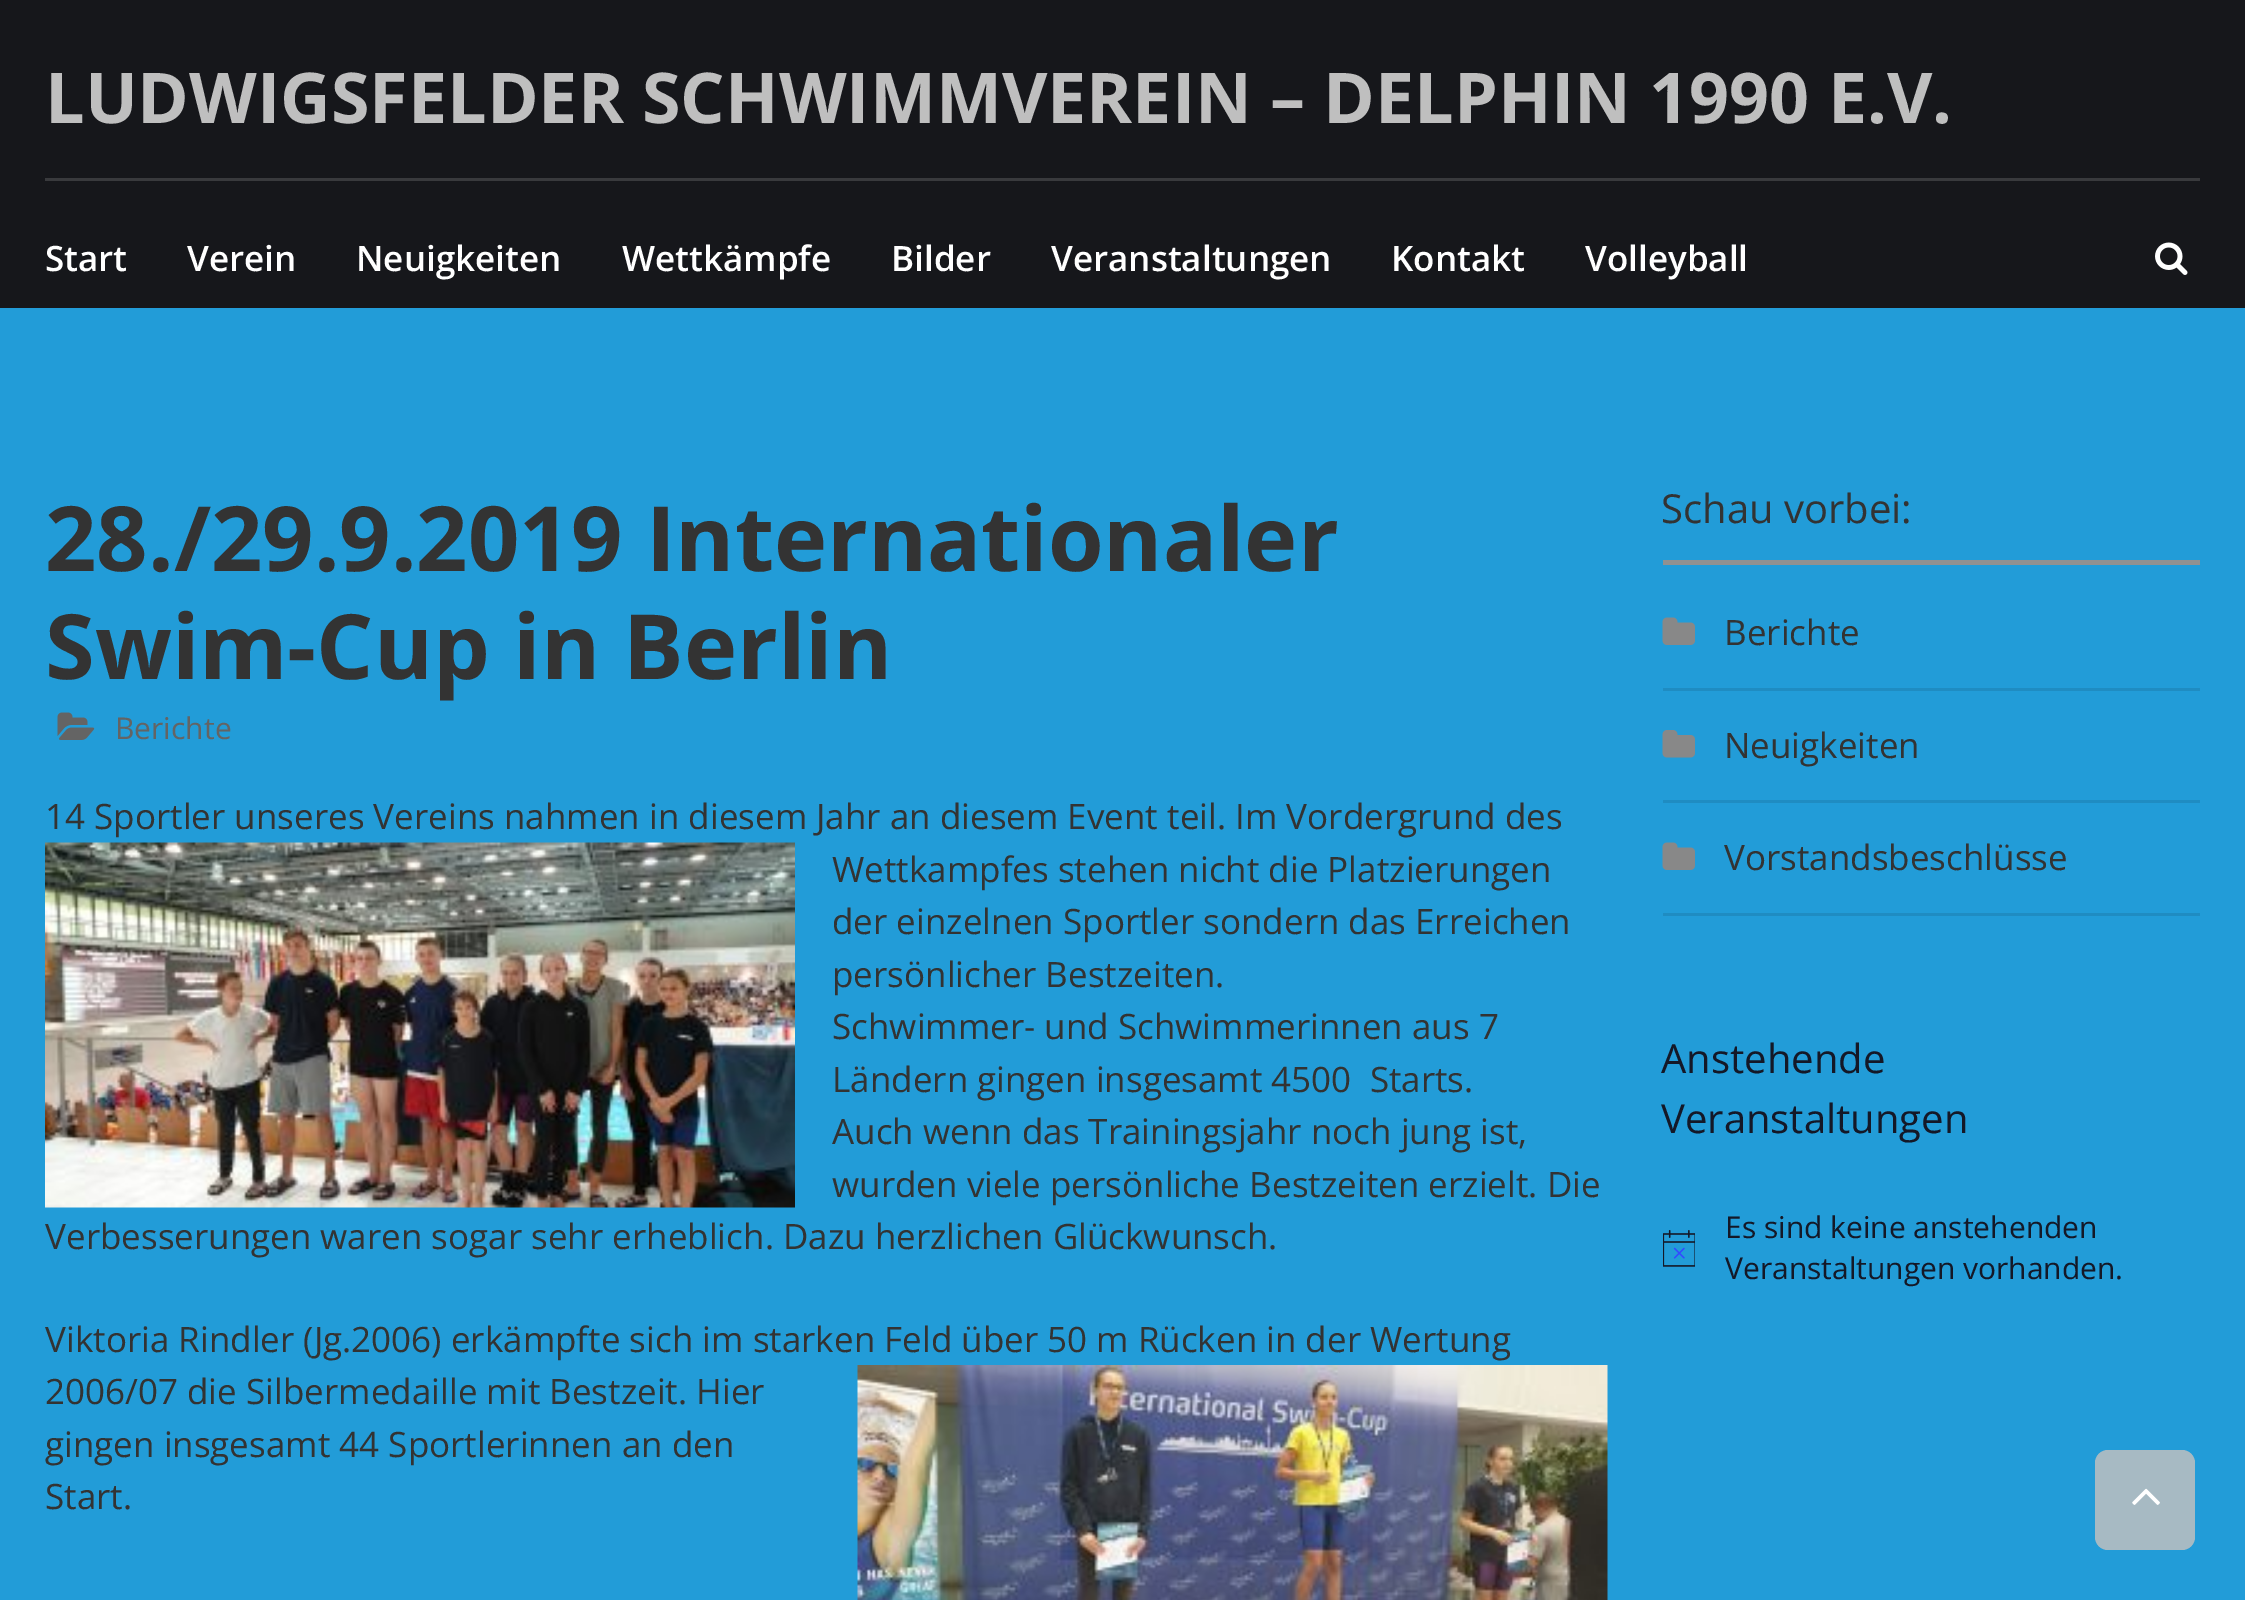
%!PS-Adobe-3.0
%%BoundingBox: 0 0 2245 1600
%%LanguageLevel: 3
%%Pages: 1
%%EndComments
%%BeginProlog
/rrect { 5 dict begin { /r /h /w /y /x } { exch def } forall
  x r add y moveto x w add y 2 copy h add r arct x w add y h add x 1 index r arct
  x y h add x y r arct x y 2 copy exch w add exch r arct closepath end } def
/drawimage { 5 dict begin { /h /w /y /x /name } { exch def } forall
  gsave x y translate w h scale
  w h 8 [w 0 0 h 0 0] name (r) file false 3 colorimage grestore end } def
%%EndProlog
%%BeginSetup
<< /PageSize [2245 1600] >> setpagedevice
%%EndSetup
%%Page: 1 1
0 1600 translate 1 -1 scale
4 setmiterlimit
0.133 0.612 0.847 setrgbcolor
0 0 2245 1600 rectfill
0.086 0.09 0.106 setrgbcolor
0 0 2245 308 rectfill
0.224 0.227 0.239 setrgbcolor
45 178 2155 3 rectfill
(images/1.raw) 2155 242 33 33 drawimage
(images/2.raw) 57 712 38 28 drawimage
(images/3.raw) 45 842 750 366 drawimage
(images/4.raw) 857 1365 751 235 drawimage
0.569 setgray
1663 560 537 5 rectfill
0.122 0.549 0.761 setrgbcolor
1663 688 537 3 rectfill
(images/5.raw) 1662 617 33 28 drawimage
1663 800 537 3 rectfill
(images/6.raw) 1662 730 33 28 drawimage
1663 913 537 3 rectfill
(images/5.raw) 1662 842 33 28 drawimage
(images/7.raw) 1663 1230 32 37 drawimage
0.655 0.729 0.765 setrgbcolor
2095 1450 100 100 13 rrect fill
(images/8.raw) 2132 1488 28 17 drawimage
/OpenSans-Bold [70 0 0 -70 0 0] selectfont
0.749 setgray
45 123 moveto (LUDWIGSFELDER SCHWIMMVEREIN – DELPHIN 1990 E.V.) show
/OpenSans-SemiBold [35 0 0 -35 0 0] selectfont
1 setgray
45 271 moveto (Start) show
187 271 moveto (Verein) show
356 271 moveto (Neuigkeiten) show
622 271 moveto (Wettkämpfe) show
891 271 moveto (Bilder) show
1051 271 moveto (Veranstaltungen) show
1391 271 moveto (Kontakt) show
1585 271 moveto (Volleyball) show
/OpenSans-Bold [90 0 0 -90 0 0] selectfont
0.2 setgray
45 571 moveto (28./29.9.2019 Internationaler) show
45 679 moveto (Swim-Cup in Berlin) show
/OpenSans-Regular [30 0 0 -30 0 0] selectfont
0.392 setgray
115 739 moveto (Berichte) show
/OpenSans-Regular [35 0 0 -35 0 0] selectfont
0.2 setgray
45 829 moveto (14 Sportler unseres Vereins nahmen in diesem Jahr an diesem Event teil. Im Vordergrund des) show
832 882 moveto (Wettkampfes stehen nicht die Platzierungen) show
832 934 moveto (der einzelnen Sportler sondern das Erreichen) show
832 987 moveto (persönlicher Bestzeiten.) show
832 1039 moveto (Schwimmer- und Schwimmerinnen aus 7) show
832 1092 moveto (Ländern gingen insgesamt 4500  Starts.) show
832 1144 moveto (Auch wenn das Trainingsjahr noch jung ist,) show
832 1197 moveto (wurden viele persönliche Bestzeiten erzielt. Die) show
45 1249 moveto (Verbesserungen waren sogar sehr erheblich. Dazu herzlichen Glückwunsch.) show
45 1352 moveto (Viktoria Rindler \(Jg.2006\) erkämpfte sich im starken Feld über 50 m Rücken in der Wertung) show
45 1404 moveto (2006/07 die Silbermedaille mit Bestzeit. Hier) show
45 1457 moveto (gingen insgesamt 44 Sportlerinnen an den) show
45 1509 moveto (Start.) show
/OpenSans-Regular [40 0 0 -40 0 0] selectfont
1661 523 moveto (Schau vorbei:) show
/OpenSans-Regular [35 0 0 -35 0 0] selectfont
1724 645 moveto (Berichte) show
1724 758 moveto (Neuigkeiten) show
1724 870 moveto (Vorstandsbeschlüsse) show
/OpenSans-Regular [40 0 0 -40 0 0] selectfont
0.078 0.094 0.153 setrgbcolor
1661 1073 moveto (Anstehende) show
1661 1133 moveto (Veranstaltungen) show
/OpenSans-Regular [30 0 0 -30 0 0] selectfont
1725 1238 moveto (Es sind keine anstehenden) show
1725 1279 moveto (Veranstaltungen vorhanden.) show
showpage
%%EOF
